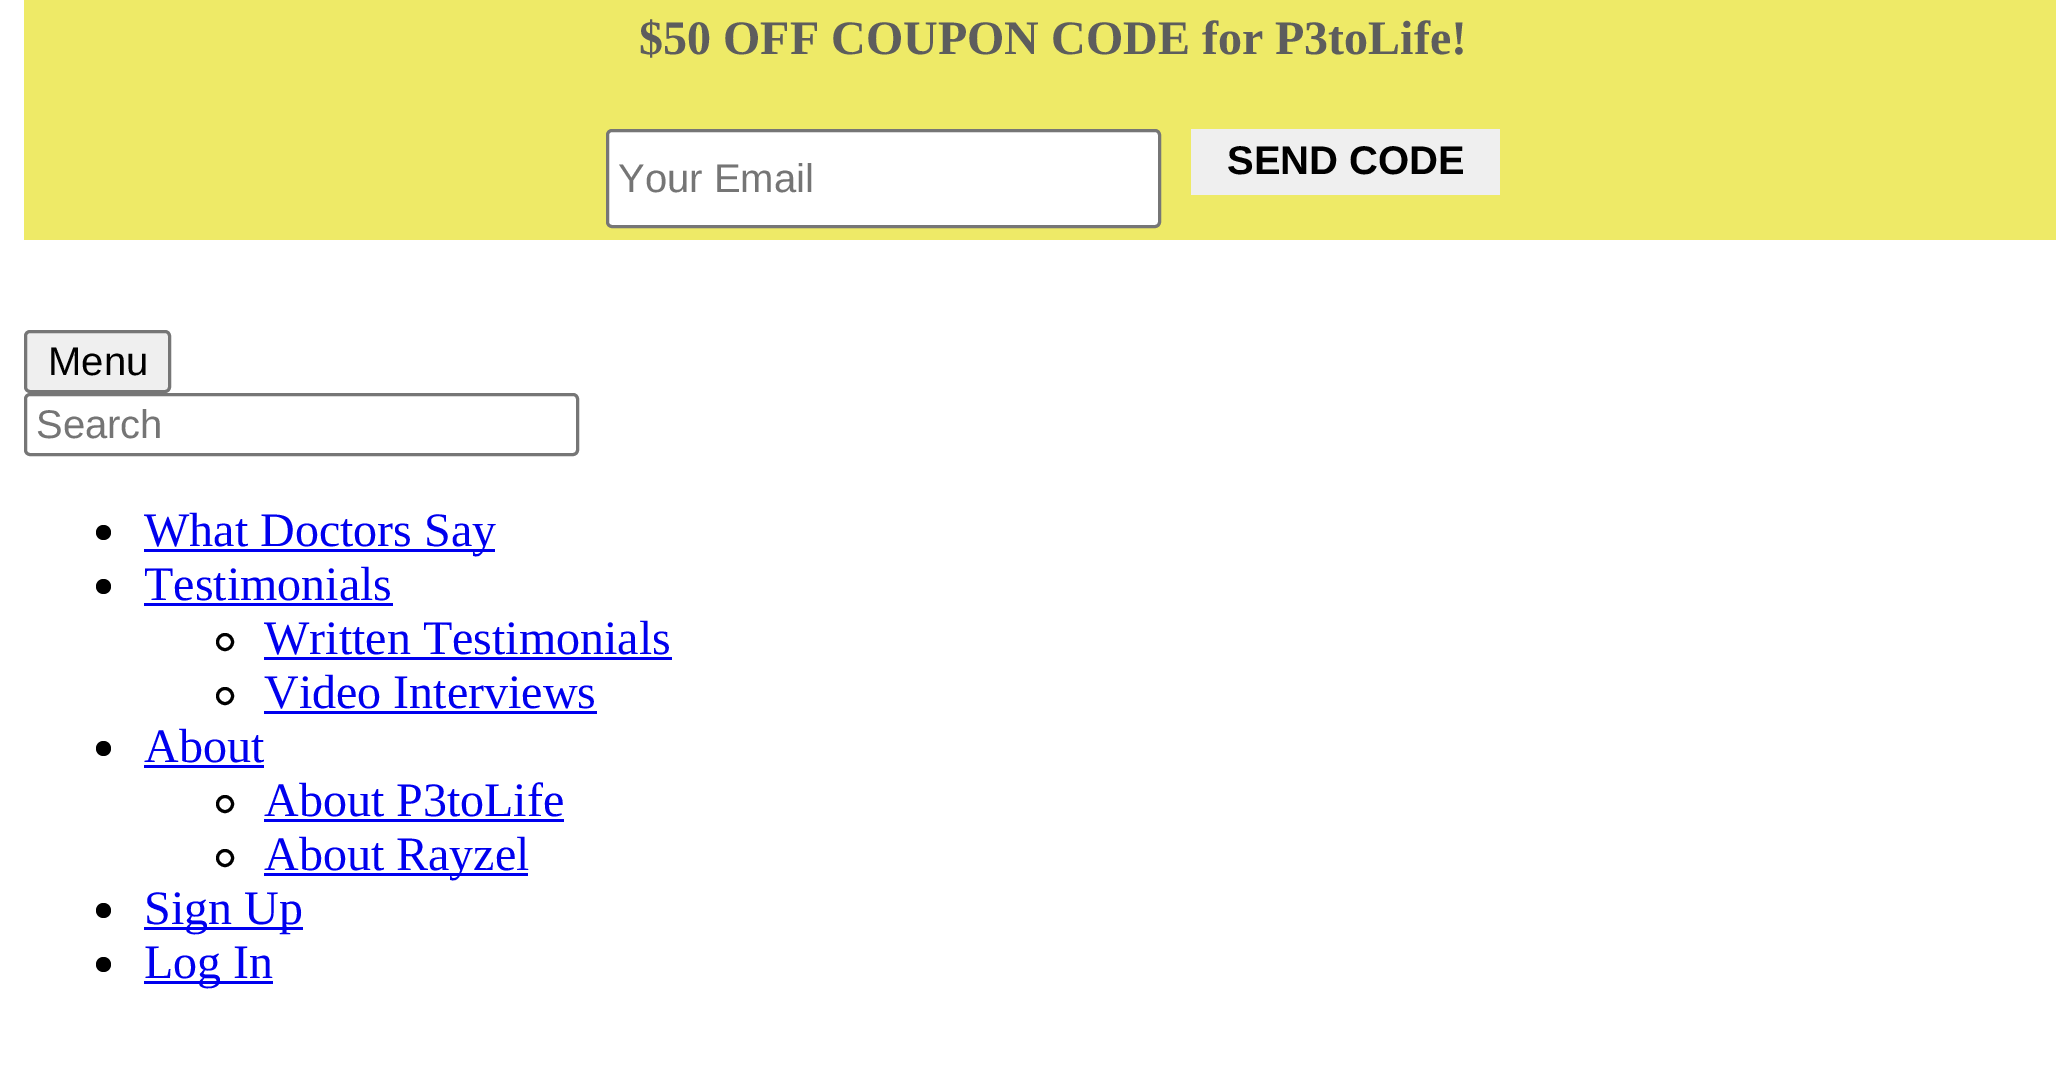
%!PS-Adobe-3.0
%%BoundingBox: 0 0 2056 1087
%%LanguageLevel: 3
%%Pages: 1
%%EndComments
%%BeginProlog
/rrect { 5 dict begin { /r /h /w /y /x } { exch def } forall
  x r add y moveto x w add y 2 copy h add r arct x w add y h add x 1 index r arct
  x y h add x y r arct x y 2 copy exch w add exch r arct closepath end } def
%%EndProlog
%%BeginSetup
<< /PageSize [2056 1087] >> setpagedevice
%%EndSetup
%%Page: 1 1
0 1087 translate 1 -1 scale
4 setmiterlimit
1 setgray
0 0 2056 1087 rectfill
0.933 0.918 0.404 setrgbcolor
24 0 2032 240 rectfill
1 setgray
607.5 130.5 552 96 4.5 rrect gsave fill grestore
0.463 setgray
3 setlinewidth
stroke
0.937 setgray
1191 129 309 66 rectfill
25.5 331.5 144 60 4.5 rrect gsave fill grestore
0.463 setgray
stroke
25.5 394.5 552 60 4.5 rrect stroke
0 setgray
newpath 103.5 532.5 7.5 0 360 arc closepath fill
0 0 0.933 setrgbcolor
144 549 351 3 rectfill
0 setgray
newpath 103.5 586.5 7.5 0 360 arc closepath fill
0 0 0.933 setrgbcolor
144 603 249 3 rectfill
0 setgray
newpath 225 642 7.5 0 360 arc closepath stroke
0 0 0.933 setrgbcolor
264 657 408 3 rectfill
0 setgray
newpath 225 696 7.5 0 360 arc closepath stroke
0 0 0.933 setrgbcolor
264 711 333 3 rectfill
0 setgray
newpath 103.5 748.5 7.5 0 360 arc closepath fill
0 0 0.933 setrgbcolor
144 765 120 3 rectfill
0 setgray
newpath 225 804 7.5 0 360 arc closepath stroke
0 0 0.933 setrgbcolor
264 819 300 3 rectfill
0 setgray
newpath 225 858 7.5 0 360 arc closepath stroke
0 0 0.933 setrgbcolor
264 873 264 3 rectfill
0 setgray
newpath 103.5 910.5 7.5 0 360 arc closepath fill
0 0 0.933 setrgbcolor
144 927 159 3 rectfill
0 setgray
newpath 103.5 964.5 7.5 0 360 arc closepath fill
0 0 0.933 setrgbcolor
144 981 129 3 rectfill
/LiberationSerif-Bold [48 0 0 -48 0 0] selectfont
0.365 setgray
639 54 moveto ($50 OFF COUPON CODE for P3toLife!) show
/LiberationSans-Regular [40 0 0 -40 0 0] selectfont
0.459 setgray
618 192 moveto (Your Email) show
/LiberationSans-Bold [40 0 0 -40 0 0] selectfont
0 setgray
1227 174 moveto (SEND CODE) show
/LiberationSans-Regular [40 0 0 -40 0 0] selectfont
48 375 moveto (Menu) show
0.459 setgray
36 438 moveto (Search) show
/LiberationSerif-Regular [48 0 0 -48 0 0] selectfont
0 0 0.933 setrgbcolor
144 546 moveto (What Doctors Say) show
144 600 moveto (Testimonials) show
264 654 moveto (Written Testimonials) show
264 708 moveto (Video Interviews) show
144 762 moveto (About) show
264 816 moveto (About P3toLife) show
264 870 moveto (About Rayzel) show
144 924 moveto (Sign Up) show
144 978 moveto (Log In) show
showpage
%%EOF
